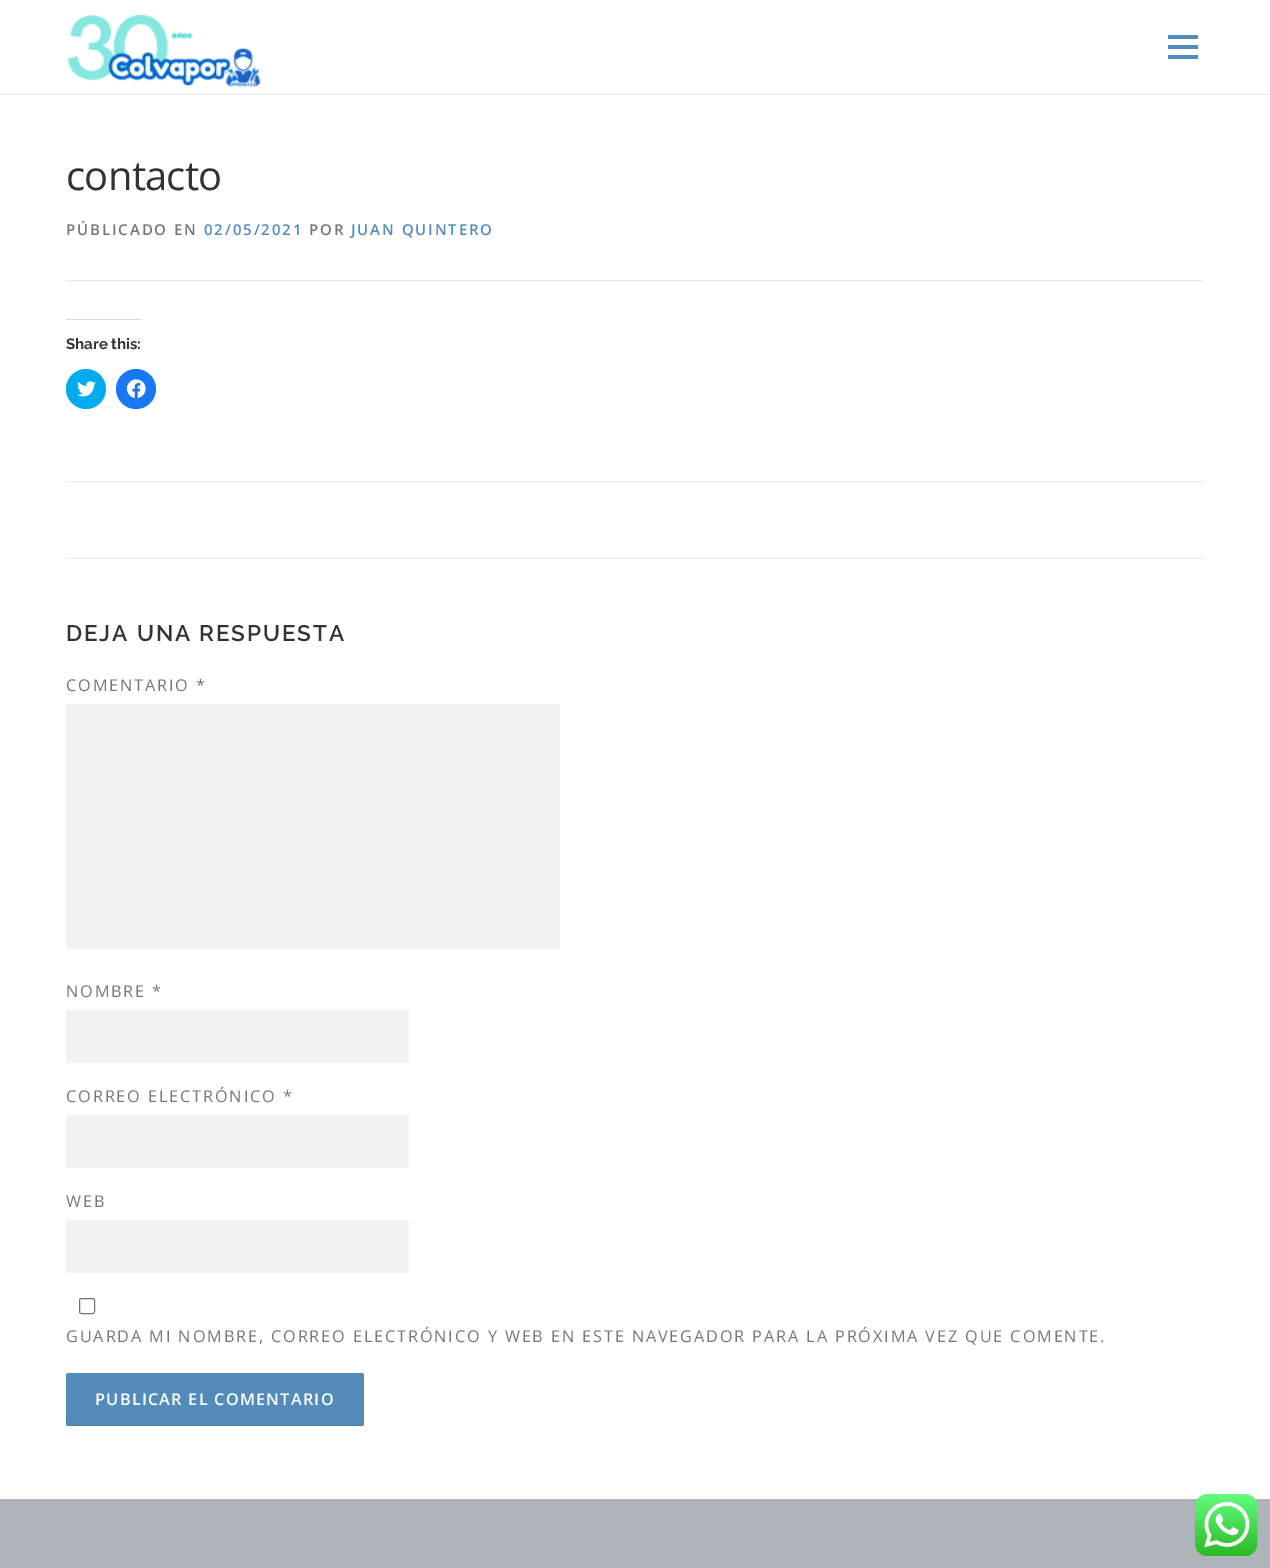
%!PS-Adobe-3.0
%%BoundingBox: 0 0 1270 1568
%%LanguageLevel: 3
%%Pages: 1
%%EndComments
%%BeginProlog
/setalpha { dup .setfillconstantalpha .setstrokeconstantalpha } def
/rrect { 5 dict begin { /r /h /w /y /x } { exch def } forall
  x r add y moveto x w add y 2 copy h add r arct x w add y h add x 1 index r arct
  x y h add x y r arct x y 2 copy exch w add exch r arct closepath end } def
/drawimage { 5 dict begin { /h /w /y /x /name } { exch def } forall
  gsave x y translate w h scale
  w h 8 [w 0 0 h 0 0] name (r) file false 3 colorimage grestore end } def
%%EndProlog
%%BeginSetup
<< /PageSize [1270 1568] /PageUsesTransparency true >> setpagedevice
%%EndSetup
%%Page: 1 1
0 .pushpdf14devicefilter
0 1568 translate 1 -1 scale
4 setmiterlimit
1 setgray
0 0 1270 1568 rectfill
(images/1.raw) 67 14 194 73 drawimage
0.325 0.545 0.733 setrgbcolor
1168 45 30 4 rectfill
1168 35 30 4 rectfill
1168 55 30 4 rectfill
0.914 setgray
0 94 1270 1 rectfill
66 280 1138 1 rectfill
0.863 0.863 0.871 setrgbcolor
66 319 75 1 rectfill
0 0.675 0.933 setrgbcolor
newpath 86 389 20 0 360 arc closepath fill
(images/2.raw) 77 381 19 16 drawimage
0.094 0.467 0.949 setrgbcolor
newpath 136 389 20 0 360 arc closepath fill
(images/3.raw) 126 379 20 19 drawimage
0.914 setgray
66 481 1138 1 rectfill
66 558 1138 1 rectfill
0.949 setgray
66 704 494 245 rectfill
66 1010 343 53 rectfill
66 1115 343 53 rectfill
66 1220 343 53 rectfill
0.463 setgray
79.5 1298.5 15 15 2 rrect stroke
0.325 0.545 0.733 setrgbcolor
66 1373 298 53 2.5 rrect fill
0.1 setalpha
0 setgray
newpath 66 1422 moveto 66 1424 66 1426 68 1426 curveto 362 1426 lineto 364 1426 364 1424 364 1422 curveto 364 1424 363 1425 361 1425 curveto 69 1425 lineto 67 1425 66 1424 66 1422 curveto closepath fill
1 setalpha
0.682 0.706 0.729 setrgbcolor
0 1499 1270 69 rectfill
(images/4.raw) 1195 1494 63 62 drawimage
/OpenSans-Regular [40 0 0 -40 0 0] selectfont
0.2 setgray
66 190 moveto -0.75 0 (contacto) ashow
/OpenSans-SemiBold [15 0 0 -15 0 0] selectfont
0.467 setgray
66 235 moveto 1.88 0 (PÚBLICADO EN) ashow
0.325 0.545 0.733 setrgbcolor
204 235 moveto 1.88 0 (02/05/2021) ashow
0.467 setgray
309 235 moveto 1.88 0 (POR) ashow
0.325 0.545 0.733 setrgbcolor
351 235 moveto 1.88 0 (JUAN QUINTERO) ashow
/Raleway-Bold [15 0 0 -15 0 0] selectfont
0.2 setgray
66 349 moveto (Share this:) show
/Raleway-SemiBold [22.5 0 0 -22.5 0 0] selectfont
66 641 moveto 1.88 0 (DEJA UNA RESPUESTA) ashow
/OpenSans-Regular [16.25 0 0 -16.25 0 0] selectfont
0.467 setgray
66 691 moveto 1.88 0 (COMENTARIO *) ashow
66 997 moveto 1.88 0 (NOMBRE *) ashow
66 1102 moveto 1.88 0 (CORREO ELECTRÓNICO *) ashow
66 1207 moveto 1.88 0 (WEB) ashow
66 1342 moveto 1.88 0 (GUARDA MI NOMBRE, CORREO ELECTRÓNICO Y WEB EN ESTE NAVEGADOR PARA LA PRÓXIMA VEZ QUE COMENTE.) ashow
/OpenSans-SemiBold [16.25 0 0 -16.25 0 0] selectfont
1 setgray
95 1405 moveto 1.25 0 (PUBLICAR EL COMENTARIO) ashow
.poppdf14devicefilter showpage
%%EOF
